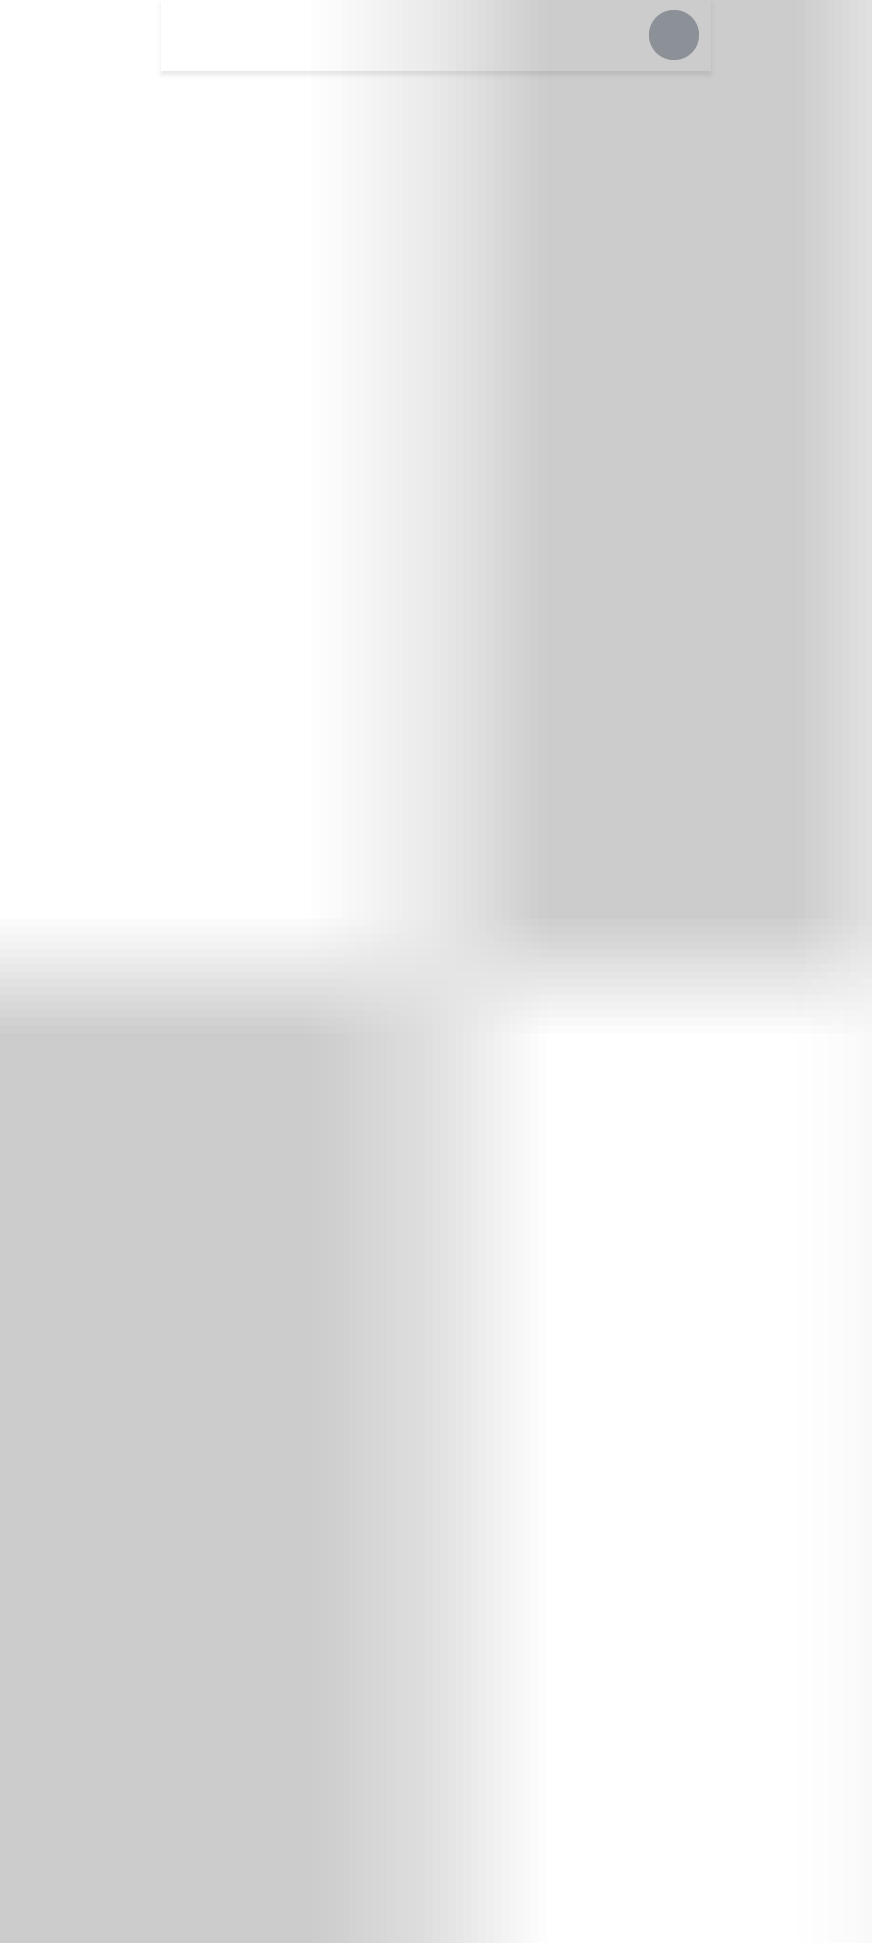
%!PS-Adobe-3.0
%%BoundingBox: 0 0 872 1943
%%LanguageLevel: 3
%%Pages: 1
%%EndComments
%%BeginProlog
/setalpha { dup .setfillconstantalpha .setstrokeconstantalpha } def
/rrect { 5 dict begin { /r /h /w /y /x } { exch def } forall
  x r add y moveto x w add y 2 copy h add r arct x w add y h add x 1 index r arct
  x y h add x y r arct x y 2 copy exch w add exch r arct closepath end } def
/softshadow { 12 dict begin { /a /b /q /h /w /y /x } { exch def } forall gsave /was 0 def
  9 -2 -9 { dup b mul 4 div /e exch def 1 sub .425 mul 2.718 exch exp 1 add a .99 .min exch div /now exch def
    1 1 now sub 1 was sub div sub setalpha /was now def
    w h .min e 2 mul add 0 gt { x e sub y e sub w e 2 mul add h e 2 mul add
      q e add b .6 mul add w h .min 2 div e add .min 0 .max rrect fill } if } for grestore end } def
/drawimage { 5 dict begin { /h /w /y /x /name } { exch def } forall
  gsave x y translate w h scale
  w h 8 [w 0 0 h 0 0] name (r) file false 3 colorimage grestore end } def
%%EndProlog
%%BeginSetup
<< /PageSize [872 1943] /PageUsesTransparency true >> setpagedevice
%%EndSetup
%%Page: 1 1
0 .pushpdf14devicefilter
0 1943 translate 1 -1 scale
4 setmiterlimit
0.957 setgray
0 0 872 1943 rectfill
(images/1.raw) 0 0 872 1943 drawimage
gsave
newpath 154 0 moveto 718 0 lineto 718 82 lineto 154 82 lineto closepath 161 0 moveto 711 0 lineto 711 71 lineto 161 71 lineto closepath eoclip newpath
0 setgray
161 4 550 71 0 2 0.08 softshadow
grestore
0.549 0.565 0.592 setrgbcolor
newpath 674 35 25 0 360 arc closepath fill
.poppdf14devicefilter showpage
%%EOF
